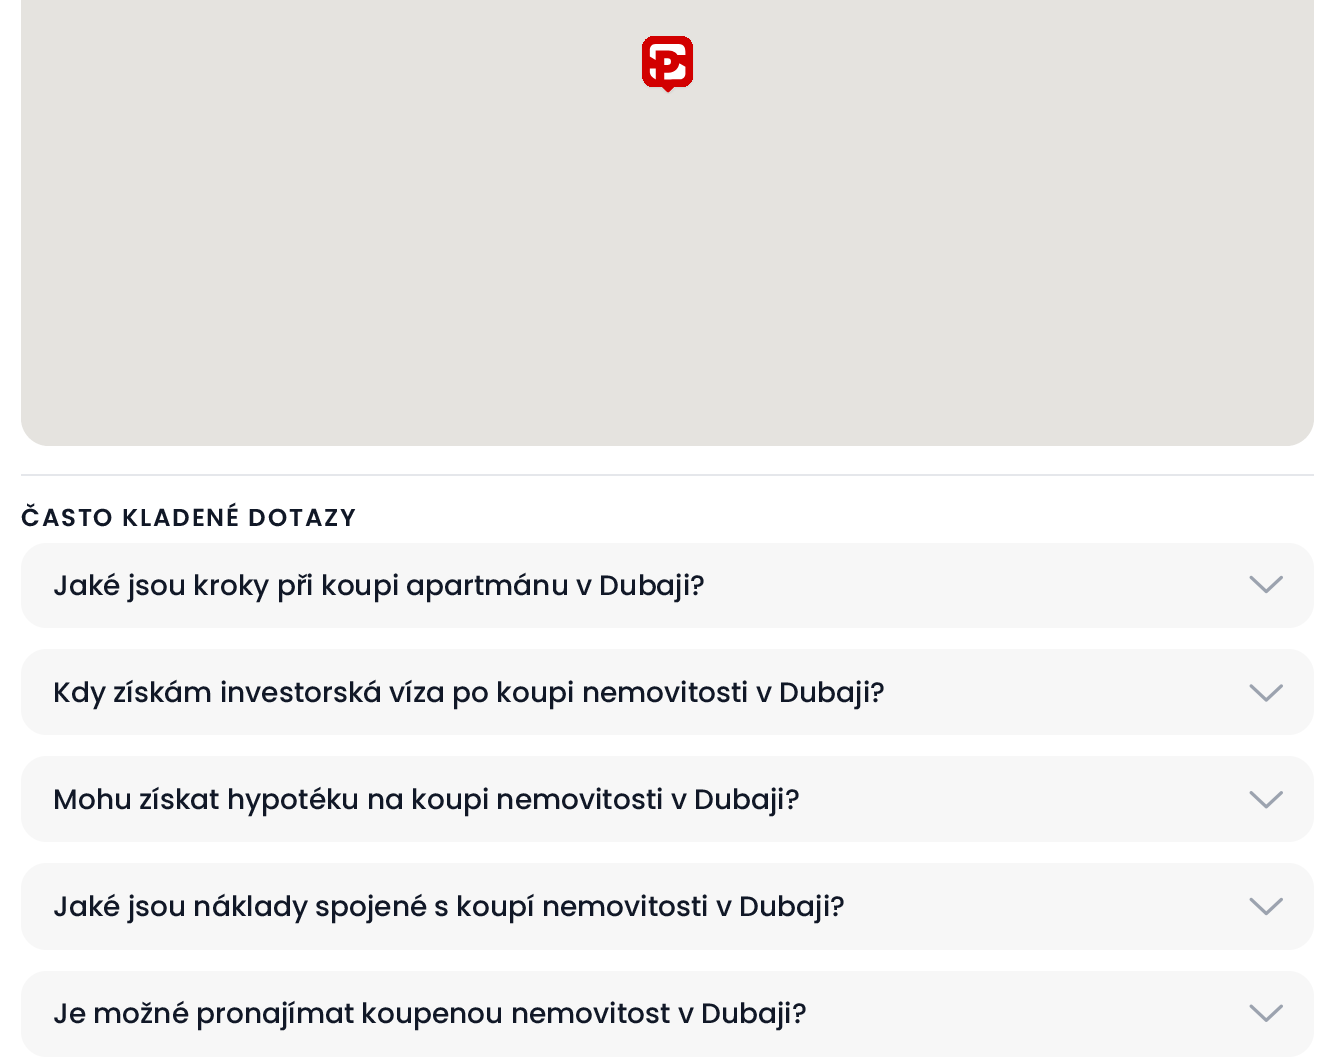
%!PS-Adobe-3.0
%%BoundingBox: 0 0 1334 1063
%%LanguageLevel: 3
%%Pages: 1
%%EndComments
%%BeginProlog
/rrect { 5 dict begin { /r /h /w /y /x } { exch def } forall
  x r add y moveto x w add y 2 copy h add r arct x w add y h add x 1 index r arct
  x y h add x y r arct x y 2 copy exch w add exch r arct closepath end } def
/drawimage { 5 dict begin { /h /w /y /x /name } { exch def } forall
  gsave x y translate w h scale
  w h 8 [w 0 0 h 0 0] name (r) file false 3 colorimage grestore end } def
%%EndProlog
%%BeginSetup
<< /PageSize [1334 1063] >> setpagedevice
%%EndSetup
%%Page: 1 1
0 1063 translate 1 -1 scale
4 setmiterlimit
1 setgray
0 0 1334 1063 rectfill
0.898 0.89 0.875 setrgbcolor
21 -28 1293 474 28 rrect fill
(images/1.raw) 641 36 53 58 drawimage
0.898 0.906 0.922 setrgbcolor
21 474 1293 2 rectfill
0.969 setgray
21 543 1293 85 26 rrect fill
(images/2.raw) 1249 575 34 19 drawimage
21 649 1293 86 26 rrect fill
(images/3.raw) 1249 684 34 18 drawimage
21 756 1293 86 26 rrect fill
(images/4.raw) 1249 791 34 18 drawimage
21 863 1293 87 26 rrect fill
(images/2.raw) 1249 897 34 19 drawimage
21 971 1293 86 26 rrect fill
(images/5.raw) 1249 1004 34 18 drawimage
/Poppins-SemiBold [24.5 0 0 -24.5 0 0] selectfont
0.067 0.094 0.153 setrgbcolor
21 526 moveto 1.75 0 (ČASTO KLADENÉ DOTAZY) ashow
/Poppins-Medium [28 0 0 -28 0 0] selectfont
53 595 moveto (Jaké jsou kroky při koupi apartmánu v Dubaji?) show
53 702 moveto (Kdy získám investorská víza po koupi nemovitosti v Dubaji?) show
53 809 moveto (Mohu získat hypotéku na koupi nemovitosti v Dubaji?) show
53 916 moveto (Jaké jsou náklady spojené s koupí nemovitosti v Dubaji?) show
53 1023 moveto (Je možné pronajímat koupenou nemovitost v Dubaji?) show
showpage
%%EOF
